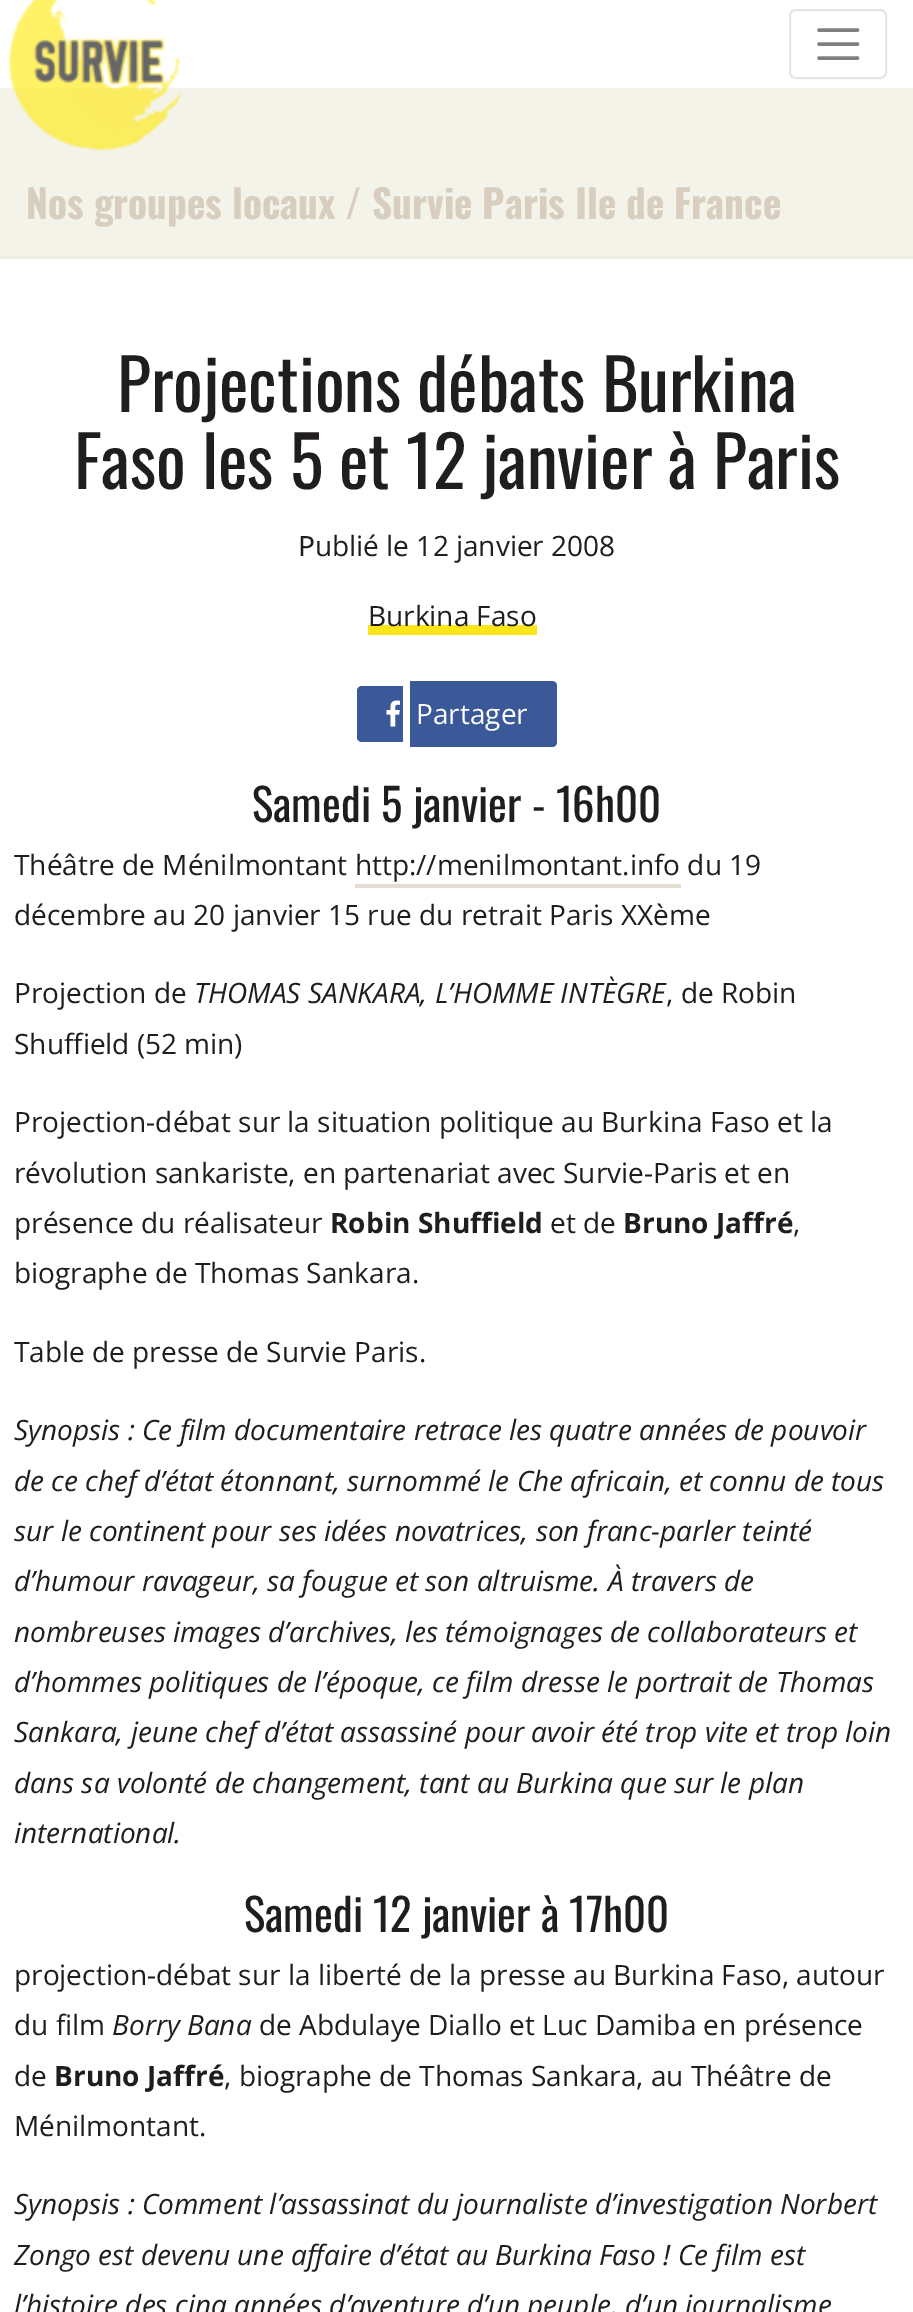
%!PS-Adobe-3.0
%%BoundingBox: 0 0 913 2312
%%LanguageLevel: 3
%%Pages: 1
%%EndComments
%%BeginProlog
/setalpha { dup .setfillconstantalpha .setstrokeconstantalpha } def
/rrect { 5 dict begin { /r /h /w /y /x } { exch def } forall
  x r add y moveto x w add y 2 copy h add r arct x w add y h add x 1 index r arct
  x y h add x y r arct x y 2 copy exch w add exch r arct closepath end } def
/softshadow { 12 dict begin { /a /b /q /h /w /y /x } { exch def } forall gsave /was 0 def
  9 -2 -9 { dup b mul 4 div /e exch def 1 sub .425 mul 2.718 exch exp 1 add a .99 .min exch div /now exch def
    1 1 now sub 1 was sub div sub setalpha /was now def
    w h .min e 2 mul add 0 gt { x e sub y e sub w e 2 mul add h e 2 mul add
      q e add b .6 mul add w h .min 2 div e add .min 0 .max rrect fill } if } for grestore end } def
/drawimage { 5 dict begin { /h /w /y /x /name } { exch def } forall
  gsave x y translate w h scale
  w h 8 [w 0 0 h 0 0] name (r) file false 3 colorimage grestore end } def
%%EndProlog
%%BeginSetup
<< /PageSize [913 2312] /PageUsesTransparency true >> setpagedevice
%%EndSetup
%%Page: 1 1
0 .pushpdf14devicefilter
0 2312 translate 1 -1 scale
4 setmiterlimit
0.953 0.953 0.918 setrgbcolor
0 0 913 2312 rectfill
1 setgray
0 0 913 88 rectfill
(images/1.raw) 8 0 175 151 drawimage
0.902 setgray
2 setlinewidth
790 10 96 68 6 rrect stroke
0.502 setgray
3.5 setlinewidth
1 setlinecap
newpath 819 30 moveto 857.5 30 lineto 819 44 moveto 857.5 44 lineto 819 58 moveto 857.5 58 lineto stroke
0 setgray
0 261 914 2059 0 2.5 0.25 softshadow
1 setgray
0 259 913 2053 rectfill
0.988 0.898 0.098 setrgbcolor
368 625 169 10 rectfill
0.231 0.349 0.596 setrgbcolor
newpath 362 686 moveto 403 686 lineto 403 742 lineto 362 742 lineto 359 742 357 740 357 737 curveto 357 691 lineto 357 688 359 686 362 686 curveto closepath fill
newpath 410 681 moveto 552 681 lineto 555 681 557 683 557 686 curveto 557 742 lineto 557 745 555 747 552 747 curveto 410 747 lineto closepath fill
(images/2.raw) 386 700 14 27 drawimage
0.886 0.867 0.816 setrgbcolor
355 884 326 4 rectfill
/Oswald-Bold [39.25 0 0 -39.25 0 0] selectfont
0.843 0.808 0.753 setrgbcolor
26 219 moveto (Nos groupes locaux / Survie Paris Ile de France) show
/Oswald-Regular [70 0 0 -70 0 0] selectfont
0.122 0.118 0.11 setrgbcolor
117 412 moveto (Projections débats Burkina) show
74 489 moveto (Faso les 5 et 12 janvier à Paris) show
/NotoSans-Regular [28 0 0 -28 0 0] selectfont
298 556 moveto (P) show
/OpenSans-Regular [28 0 0 -28 0 0] selectfont
315 556 moveto (ublié le 12 janvier 2008) show
368 626 moveto (Burkina Faso) show
1 setgray
416 724 moveto (Partager) show
/Oswald-Regular [44.75 0 0 -44.75 0 0] selectfont
0.122 0.118 0.11 setrgbcolor
252 822 moveto (Samedi 5 janvier - 16h00) show
/OpenSans-Regular [28 0 0 -28 0 0] selectfont
14 875 moveto (Théâtre de Ménilmontant http://menilmontant.info du 19) show
14 925 moveto (décembre au 20 janvier 15 rue du retrait Paris XXème) show
14 1003 moveto (Projection de) show
/OpenSans-Italic [28 0 0 -28 0 0] selectfont
194 1003 moveto (THOMAS SANKARA, L’HOMME INTÈGRE) show
/OpenSans-Regular [28 0 0 -28 0 0] selectfont
666 1003 moveto (, de Robin) show
14 1054 moveto (Shuffield \(52 min\)) show
14 1132 moveto (Projection-débat sur la situation politique au Burkina Faso et la) show
14 1183 moveto (révolution sankariste, en partenariat avec Survie-Paris et en) show
14 1233 moveto (présence du réalisateur) show
/OpenSans-Bold [28 0 0 -28 0 0] selectfont
330 1233 moveto (Robin Shuffield) show
/OpenSans-Regular [28 0 0 -28 0 0] selectfont
550 1233 moveto (et de) show
/OpenSans-Bold [28 0 0 -28 0 0] selectfont
623 1233 moveto (Bruno Jaffré) show
/OpenSans-Regular [28 0 0 -28 0 0] selectfont
793 1233 moveto (,) show
14 1283 moveto (biographe de Thomas Sankara.) show
14 1362 moveto (Table de presse de Survie Paris.) show
/OpenSans-Italic [28 0 0 -28 0 0] selectfont
14 1440 moveto (Synopsis : Ce film documentaire retrace les quatre années de pouvoir) show
14 1491 moveto (de ce chef d’état étonnant, surnommé le Che africain, et connu de tous) show
14 1541 moveto (sur le continent pour ses idées novatrices, son franc-parler teinté) show
14 1591 moveto (d’humour ravageur, sa fougue et son altruisme. À travers de) show
14 1642 moveto (nombreuses images d’archives, les témoignages de collaborateurs et) show
14 1692 moveto (d’hommes politiques de l’époque, ce film dresse le portrait de Thomas) show
14 1742 moveto (Sankara, jeune chef d’état assassiné pour avoir été trop vite et trop loin) show
14 1793 moveto (dans sa volonté de changement, tant au Burkina que sur le plan) show
14 1843 moveto (international.) show
/Oswald-Regular [44.75 0 0 -44.75 0 0] selectfont
244 1932 moveto (Samedi 12 janvier à 17h00) show
/OpenSans-Regular [28 0 0 -28 0 0] selectfont
14 1985 moveto (projection-débat sur la liberté de la presse au Burkina Faso, autour) show
14 2035 moveto (du film) show
/OpenSans-Italic [28 0 0 -28 0 0] selectfont
112 2035 moveto (Borry Bana) show
/OpenSans-Regular [28 0 0 -28 0 0] selectfont
259 2035 moveto (de Abdulaye Diallo et Luc Damiba en présence) show
14 2086 moveto (de) show
/OpenSans-Bold [28 0 0 -28 0 0] selectfont
54 2086 moveto (Bruno Jaffré) show
/OpenSans-Regular [28 0 0 -28 0 0] selectfont
224 2086 moveto (, biographe de Thomas Sankara, au Théâtre de) show
14 2136 moveto (Ménilmontant.) show
/OpenSans-Italic [28 0 0 -28 0 0] selectfont
14 2214 moveto (Synopsis : Comment l’assassinat du journaliste d’investigation Norbert) show
14 2265 moveto (Zongo est devenu une affaire d’état au Burkina Faso ! Ce film est) show
14 2315 moveto (l’histoire des cinq années d’aventure d’un peuple, d’un journalisme) show
.poppdf14devicefilter showpage
%%EOF
